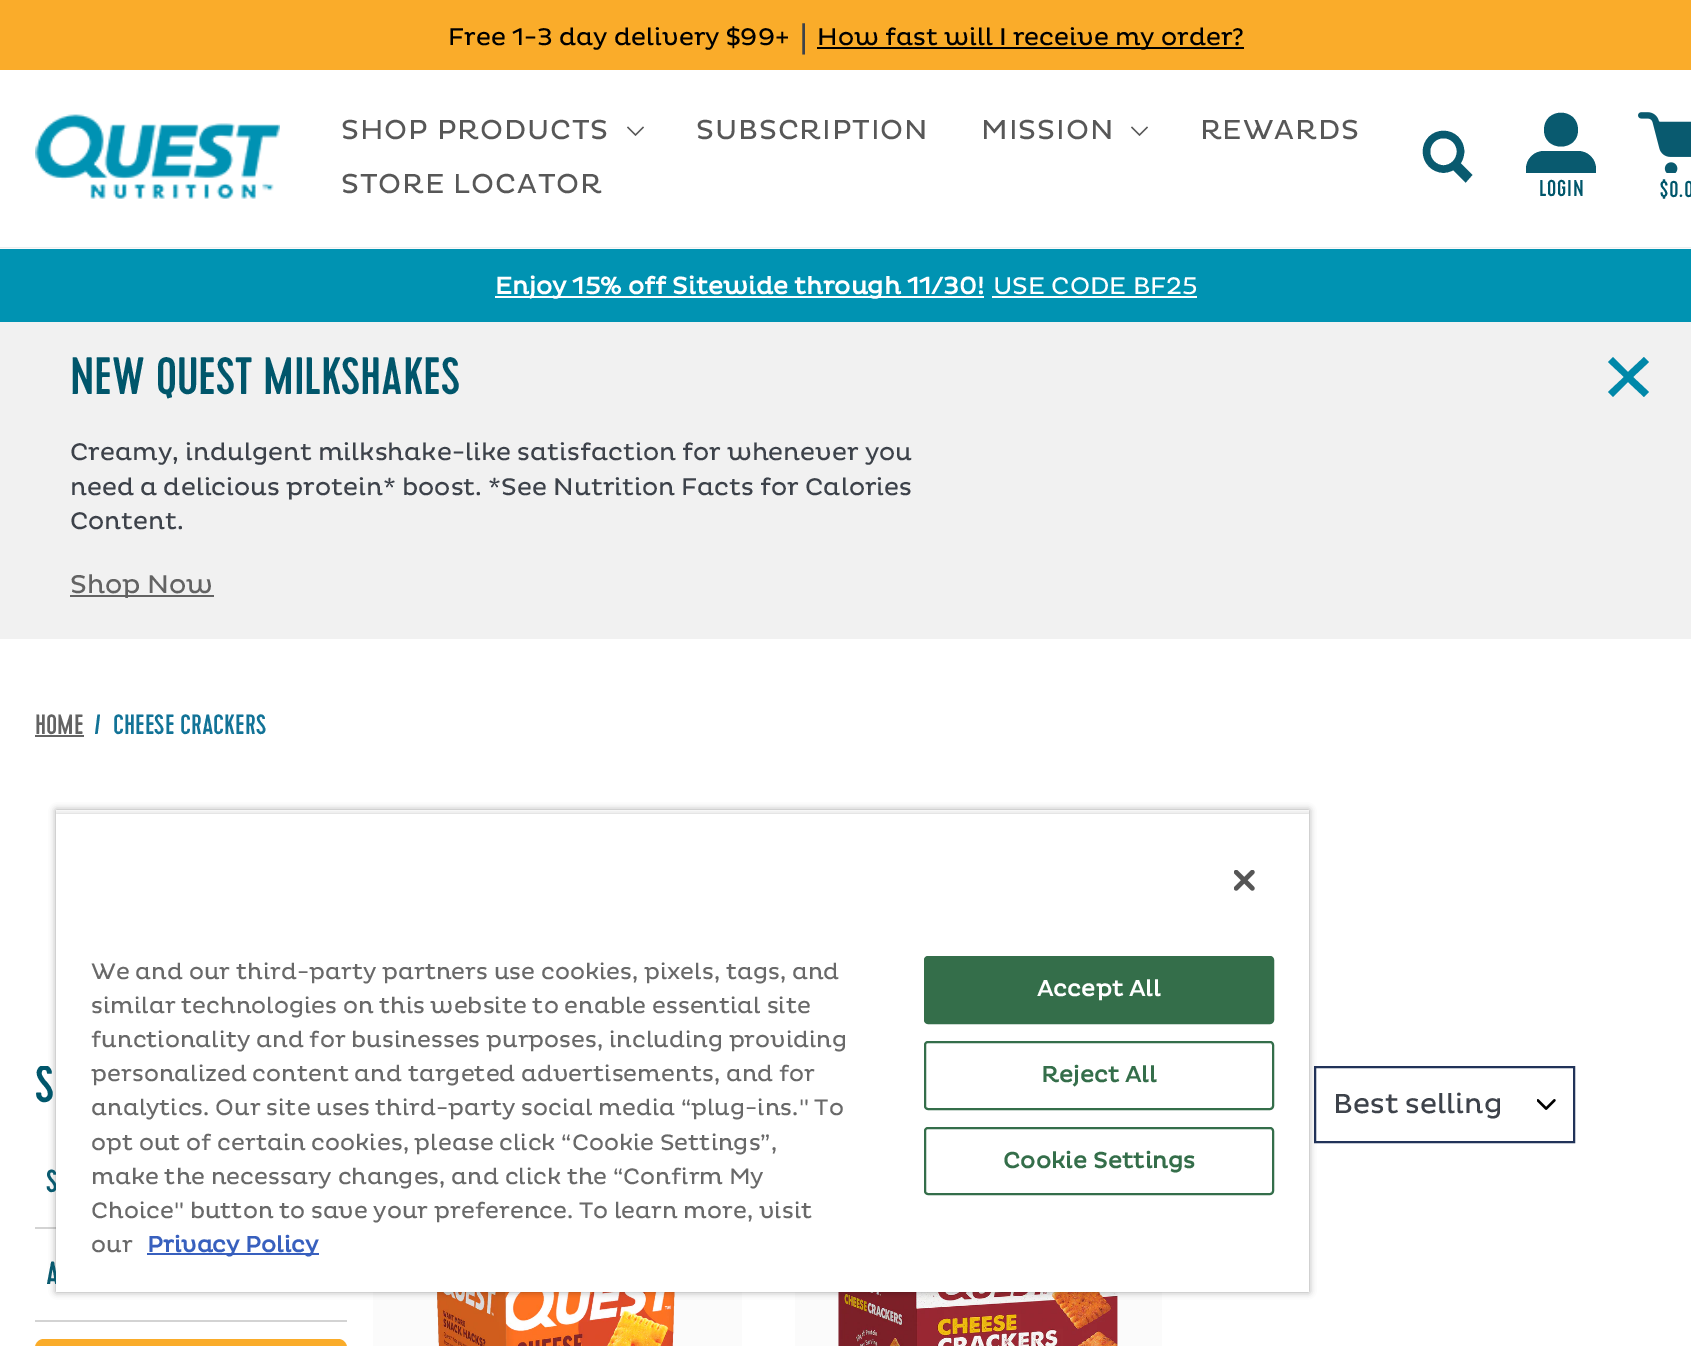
%!PS-Adobe-3.0
%%BoundingBox: 0 0 1691 1346
%%LanguageLevel: 3
%%Pages: 1
%%EndComments
%%BeginProlog
/setalpha { dup .setfillconstantalpha .setstrokeconstantalpha } def
/rrect { 5 dict begin { /r /h /w /y /x } { exch def } forall
  x r add y moveto x w add y 2 copy h add r arct x w add y h add x 1 index r arct
  x y h add x y r arct x y 2 copy exch w add exch r arct closepath end } def
/softshadow { 12 dict begin { /a /b /q /h /w /y /x } { exch def } forall gsave /was 0 def
  9 -2 -9 { dup b mul 4 div /e exch def 1 sub .425 mul 2.718 exch exp 1 add a .99 .min exch div /now exch def
    1 1 now sub 1 was sub div sub setalpha /was now def
    w h .min e 2 mul add 0 gt { x e sub y e sub w e 2 mul add h e 2 mul add
      q e add b .6 mul add w h .min 2 div e add .min 0 .max rrect fill } if } for grestore end } def
/drawimage { 5 dict begin { /h /w /y /x /name } { exch def } forall
  gsave x y translate w h scale
  w h 8 [w 0 0 h 0 0] name (r) file false 3 colorimage grestore end } def
%%EndProlog
%%BeginSetup
<< /PageSize [1691 1346] /PageUsesTransparency true >> setpagedevice
%%EndSetup
%%Page: 1 1
0 .pushpdf14devicefilter
0 1346 translate 1 -1 scale
4 setmiterlimit
1 setgray
0 0 1691 1346 rectfill
0 0.576 0.698 setrgbcolor
0 249 1691 73 rectfill
0 setgray
0 68 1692 179 0 1 0.2 softshadow
0.98 0.675 0.165 setrgbcolor
0 0 1691 70 rectfill
0 setgray
817 47 427 2 rectfill
1 setgray
0 70 1691 177 rectfill
(images/1.raw) 35 114 245 85 drawimage
0.341 setgray
1.2 setlinewidth
newpath 627.5 127 moveto 635.5 135 lineto 643.5 127 lineto stroke
newpath 1131.5 127 moveto 1139.5 135 lineto 1147.5 127 lineto stroke
0.035 0.353 0.435 setrgbcolor
7.4 setlinewidth
newpath 1443.5 169 moveto 1453 169 1460.5 161 1460.5 151.5 curveto 1460.5 142 1453 134.5 1443.5 134.5 curveto 1434 134.5 1426.5 142 1426.5 151.5 curveto 1426.5 161 1434 169 1443.5 169 curveto closepath stroke
newpath 1465.5 179 moveto 1469 175 lineto 1457 163 lineto 1453 166.5 lineto closepath gsave fill grestore
4.9 setlinewidth
stroke
newpath 1544 130 moveto 1544 107 1578 107 1578 130 curveto 1578 152 1544 152 1544 130 curveto closepath 1578 151 moveto 1544 151 lineto 1534 151 1526 159 1526 169 curveto 1526 173 lineto 1596 173 lineto 1596 169 lineto 1596 159 1588 151 1578 151 curveto closepath fill
(images/2.raw) 1638 112 53 61 drawimage
1 setgray
495 296 489 2 rectfill
992 296 205 2 rectfill
0.945 setgray
0 322 1691 317 rectfill
0.388 setgray
70 595 144 2 rectfill
0 0.533 0.663 setrgbcolor
newpath 1649 362 moveto 1644 357 lineto 1628 372 lineto 1613 357 lineto 1608 362 lineto 1624 377 lineto 1608 392 lineto 1613 397 lineto 1628 382 lineto 1644 397 lineto 1649 392 lineto 1633 377 lineto closepath fill
0.388 setgray
35 735 49 2 rectfill
0.827 setgray
35 1227 21 2 rectfill
35 1320 312 2 rectfill
0.98 0.675 0.165 setrgbcolor
35 1339 312 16 9 rrect fill
(images/3.raw) 1537 1099 19 11 drawimage
0.129 0.2 0.349 setrgbcolor
2 setlinewidth
1315 1067 259 75 rectstroke
0.984 setgray
373 1292 369 54 rectfill
(images/4.raw) 437 1292 238 54 drawimage
795 1292 367 54 rectfill
(images/5.raw) 838 1292 280 54 drawimage
gsave
newpath 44 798 moveto 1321 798 lineto 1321 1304 lineto 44 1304 lineto closepath 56 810 moveto 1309 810 lineto 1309 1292 lineto 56 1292 lineto closepath eoclip newpath
0 setgray
56 810 1253 482 0 3.5 0.35 softshadow
grestore
gsave
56 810 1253 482 rectclip
0 setgray
56 814 1253 478 0 3.5 0.2 softshadow
grestore
/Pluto-Regular [24.5 0 0 -24.5 0 0] selectfont
0 setgray
448 45 moveto (Free 1-3 day delivery $99+) show
/Pluto-Regular [35 0 0 -35 0 0] selectfont
0.239 0.259 0.29 setrgbcolor
799 48 moveto (|) show
/Pluto-Regular [24.5 0 0 -24.5 0 0] selectfont
0 setgray
817 45 moveto (How fast will I receive my order?) show
/Pluto-Regular [28 0 0 -28 0 0] selectfont
0.341 setgray
341 139 moveto 0.9 0 (SHOP PRODUCTS) ashow
696 139 moveto 0.9 0 (SUBSCRIPTION) ashow
981 139 moveto 0.9 0 (MISSION) ashow
1200 139 moveto 0.9 0 (REWARDS) ashow
341 193 moveto 0.9 0 (STORE LOCATOR) ashow
/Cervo-Medium [23 0 0 -23 0 0] selectfont
0 0.337 0.42 setrgbcolor
1539 196 moveto 0.9 0 (LOGIN) ashow
1660 197 moveto 0.9 0 ($0.0) ashow
/Pluto-Bold [24.5 0 0 -24.5 0 0] selectfont
1 setgray
495 294 moveto (Enjoy 15% off Sitewide through 11/30!) show
/Pluto-Regular [24.5 0 0 -24.5 0 0] selectfont
993 294 moveto (USE CODE BF25) show
/Cervo-Medium [52.5 0 0 -52.5 0 0] selectfont
0 0.337 0.42 setrgbcolor
70 394 moveto (NEW QUEST MILKSHAKES) show
/Pluto-Regular [24.5 0 0 -24.5 0 0] selectfont
0.239 0.259 0.29 setrgbcolor
70 460 moveto (Creamy, indulgent milkshake-like satisfaction for whenever you) show
70 495 moveto (need a delicious protein* boost. *See Nutrition Facts for Calories) show
70 529 moveto (Content.) show
/Pluto-Regular [26.25 0 0 -26.25 0 0] selectfont
0.388 setgray
70 593 moveto (Shop Now) show
/Cervo-Medium [28 0 0 -28 0 0] selectfont
35 734 moveto (HOME) show
0.071 0.451 0.592 setrgbcolor
94 734 moveto (/) show
113 734 moveto (CHEESE CRACKERS) show
gsave
0 1066 347 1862 rectclip
/Cervo-Medium [52.5 0 0 -52.5 0 0] selectfont
0 0.337 0.42 setrgbcolor
35 1102 moveto (S) show
grestore
/Cervo-Medium [32 0 0 -32 0 0] selectfont
0.035 0.353 0.435 setrgbcolor
46 1192 moveto 1 0 (S) ashow
46 1284 moveto 1 0 (A) ashow
/Pluto-Regular [28 0 0 -28 0 0] selectfont
0.239 0.259 0.29 setrgbcolor
1333 1113 moveto (Best selling) show
1 setgray
56 814 1253 478 rectfill
(images/6.raw) 1234 870 21 21 drawimage
/Pluto-Regular [22.75 0 0 -22.75 0 0] selectfont
0.412 setgray
91 979 moveto (We and our third-party partners use cookies, pixels, tags, and) show
91 1013 moveto (similar technologies on this website to enable essential site) show
91 1047 moveto (functionality and for businesses purposes, including providing) show
91 1081 moveto (personalized content and targeted advertisements, and for) show
91 1115 moveto (analytics. Our site uses third-party social media “plug-ins." To) show
91 1150 moveto (opt out of certain cookies, please click “Cookie Settings”,) show
91 1184 moveto (make the necessary changes, and click the “Confirm My) show
91 1218 moveto (Choice" button to save your preference. To learn more, visit) show
91 1252 moveto (our) show
0.22 0.376 0.745 setrgbcolor
147 1253 172 2 rectfill
/Pluto-Bold [22.75 0 0 -22.75 0 0] selectfont
147 1252 moveto (Privacy Policy) show
0.204 0.431 0.29 setrgbcolor
925 957 348 66 3 rrect gsave fill grestore
stroke
1 setgray
1037 996 moveto 0.25 0 (Accept All) ashow
0.204 0.431 0.29 setrgbcolor
925 1042 348 67 3 rrect stroke
1041 1082 moveto 0.25 0 (Reject All) ashow
925 1128 348 66 3 rrect stroke
1003 1168 moveto 0.25 0 (Cookie Settings) ashow
.poppdf14devicefilter showpage
%%EOF
